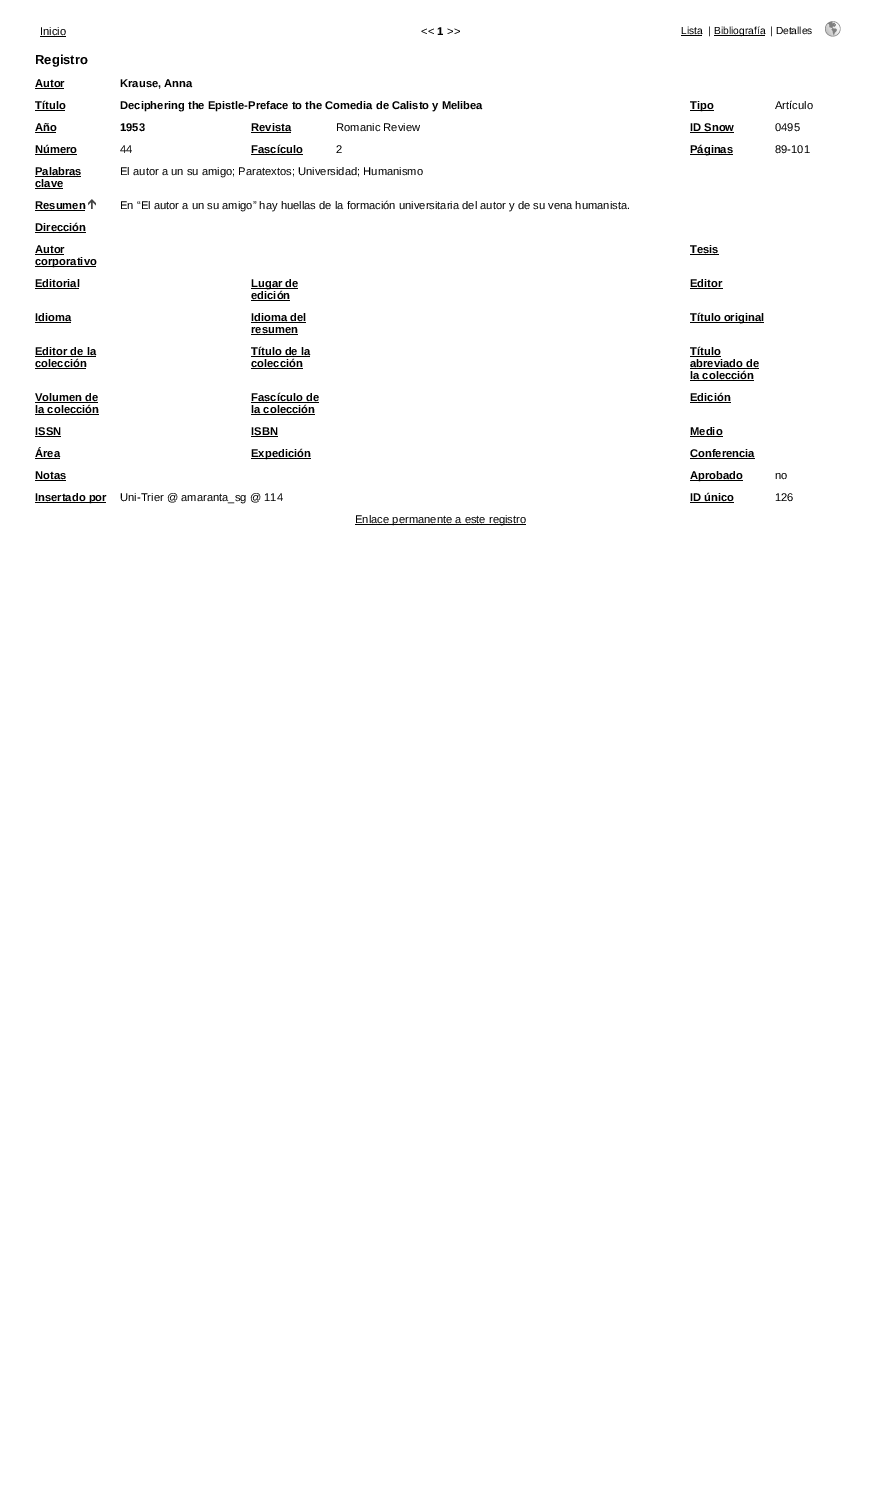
%!PS-Adobe-3.0
%%BoundingBox: 0 0 881 1496
%%LanguageLevel: 3
%%Pages: 1
%%EndComments
%%BeginProlog
/drawimage { 5 dict begin { /h /w /y /x /name } { exch def } forall
  gsave x y translate w h scale
  w h 8 [w 0 0 h 0 0] name (r) file false 3 colorimage grestore end } def
%%EndProlog
%%BeginSetup
<< /PageSize [881 1496] >> setpagedevice
%%EndSetup
%%Page: 1 1
0 1496 translate 1 -1 scale
4 setmiterlimit
1 setgray
0 0 881 1496 rectfill
0 setgray
40 36 26 1 rectfill
681 35 21 1 rectfill
714 35 51 1 rectfill
(images/1.raw) 825 21 16 16 drawimage
35 88 29 1 rectfill
35 110 30 1 rectfill
690 110 24 1 rectfill
35 132 21 1 rectfill
251 132 40 1 rectfill
690 132 44 1 rectfill
35 154 42 1 rectfill
251 154 52 1 rectfill
690 154 43 1 rectfill
35 176 46 1 rectfill
35 188 28 1 rectfill
35 210 50 1 rectfill
(images/2.raw) 88 199 8 10 drawimage
35 232 51 1 rectfill
35 254 29 1 rectfill
35 266 61 1 rectfill
690 254 29 1 rectfill
35 288 44 1 rectfill
251 288 47 1 rectfill
251 300 39 1 rectfill
690 288 33 1 rectfill
35 322 36 1 rectfill
251 322 55 1 rectfill
251 334 47 1 rectfill
690 322 74 1 rectfill
35 356 61 1 rectfill
35 368 51 1 rectfill
251 356 59 1 rectfill
251 368 52 1 rectfill
690 356 31 1 rectfill
690 368 69 1 rectfill
690 380 64 1 rectfill
35 402 63 1 rectfill
35 414 64 1 rectfill
251 402 68 1 rectfill
251 414 64 1 rectfill
690 402 41 1 rectfill
35 436 26 1 rectfill
251 436 27 1 rectfill
690 436 33 1 rectfill
35 458 25 1 rectfill
251 458 60 1 rectfill
690 458 65 1 rectfill
35 480 31 1 rectfill
690 480 53 1 rectfill
35 502 71 1 rectfill
690 502 44 1 rectfill
355 524 171 1 rectfill
/LiberationSans-Regular [11.2 0 0 -11.2 0 0] selectfont
40 35 moveto (Inicio) show
421 35 moveto (<<) show
/LiberationSans-Bold [11.2 0 0 -11.2 0 0] selectfont
437 35 moveto (1) show
/LiberationSans-Regular [11.2 0 0 -11.2 0 0] selectfont
447 35 moveto (>>) show
/LiberationSans-Regular [10.25 0 0 -10.25 0 0] selectfont
681 34 moveto (Lista) show
708 34 moveto (|) show
714 34 moveto (Bibliografía) show
770 34 moveto (| Detalles) show
/LiberationSans-Bold [13 0 0 -13 0 0] selectfont
35 64 moveto (Registro) show
/LiberationSans-Bold [11.2 0 0 -11.2 0 0] selectfont
35 87 moveto (Autor) show
120 87 moveto (Krause, Anna) show
35 109 moveto (Título) show
120 109 moveto (Deciphering the Epistle-Preface to the Comedia de Calisto y Melibea) show
690 109 moveto (Tipo) show
/LiberationSans-Regular [11.2 0 0 -11.2 0 0] selectfont
775 109 moveto (Artículo) show
/LiberationSans-Bold [11.2 0 0 -11.2 0 0] selectfont
35 131 moveto (Año) show
120 131 moveto (1953) show
251 131 moveto (Revista) show
/LiberationSans-Regular [11.2 0 0 -11.2 0 0] selectfont
336 131 moveto (Romanic Review) show
/LiberationSans-Bold [11.2 0 0 -11.2 0 0] selectfont
690 131 moveto (ID Snow) show
/LiberationSans-Regular [11.2 0 0 -11.2 0 0] selectfont
775 131 moveto (0495) show
/LiberationSans-Bold [11.2 0 0 -11.2 0 0] selectfont
35 153 moveto (Número) show
/LiberationSans-Regular [11.2 0 0 -11.2 0 0] selectfont
120 153 moveto (44) show
/LiberationSans-Bold [11.2 0 0 -11.2 0 0] selectfont
251 153 moveto (Fascículo) show
/LiberationSans-Regular [11.2 0 0 -11.2 0 0] selectfont
336 153 moveto (2) show
/LiberationSans-Bold [11.2 0 0 -11.2 0 0] selectfont
690 153 moveto (Páginas) show
/LiberationSans-Regular [11.2 0 0 -11.2 0 0] selectfont
775 153 moveto (89-101) show
/LiberationSans-Bold [11.2 0 0 -11.2 0 0] selectfont
35 175 moveto (Palabras) show
35 187 moveto (clave) show
/LiberationSans-Regular [11.2 0 0 -11.2 0 0] selectfont
120 175 moveto (El autor a un su amigo; Paratextos; Universidad; Humanismo) show
/LiberationSans-Bold [11.2 0 0 -11.2 0 0] selectfont
35 209 moveto (Resumen) show
/LiberationSans-Regular [11.2 0 0 -11.2 0 0] selectfont
120 209 moveto (En “El autor a un su amigo” hay huellas de la formación universitaria del autor y de su vena humanista.) show
/LiberationSans-Bold [11.2 0 0 -11.2 0 0] selectfont
35 231 moveto (Dirección) show
35 253 moveto (Autor) show
35 265 moveto (corporativo) show
690 253 moveto (Tesis) show
35 287 moveto (Editorial) show
251 287 moveto (Lugar de) show
251 299 moveto (edición) show
690 287 moveto (Editor) show
35 321 moveto (Idioma) show
251 321 moveto (Idioma del) show
251 333 moveto (resumen) show
690 321 moveto (Título original) show
35 355 moveto (Editor de la) show
35 367 moveto (colección) show
251 355 moveto (Título de la) show
251 367 moveto (colección) show
690 355 moveto (Título) show
690 367 moveto (abreviado de) show
690 379 moveto (la colección) show
35 401 moveto (Volumen de) show
35 413 moveto (la colección) show
251 401 moveto (Fascículo de) show
251 413 moveto (la colección) show
690 401 moveto (Edición) show
35 435 moveto (ISSN) show
251 435 moveto (ISBN) show
690 435 moveto (Medio) show
35 457 moveto (Área) show
251 457 moveto (Expedición) show
690 457 moveto (Conferencia) show
35 479 moveto (Notas) show
690 479 moveto (Aprobado) show
/LiberationSans-Regular [11.2 0 0 -11.2 0 0] selectfont
775 479 moveto (no) show
/LiberationSans-Bold [11.2 0 0 -11.2 0 0] selectfont
35 501 moveto (Insertado por) show
/LiberationSans-Regular [11.2 0 0 -11.2 0 0] selectfont
120 501 moveto (Uni-Trier @ amaranta_sg @ 114) show
/LiberationSans-Bold [11.2 0 0 -11.2 0 0] selectfont
690 501 moveto (ID único) show
/LiberationSans-Regular [11.2 0 0 -11.2 0 0] selectfont
775 501 moveto (126) show
355 523 moveto (Enlace permanente a este registro) show
showpage
%%EOF
